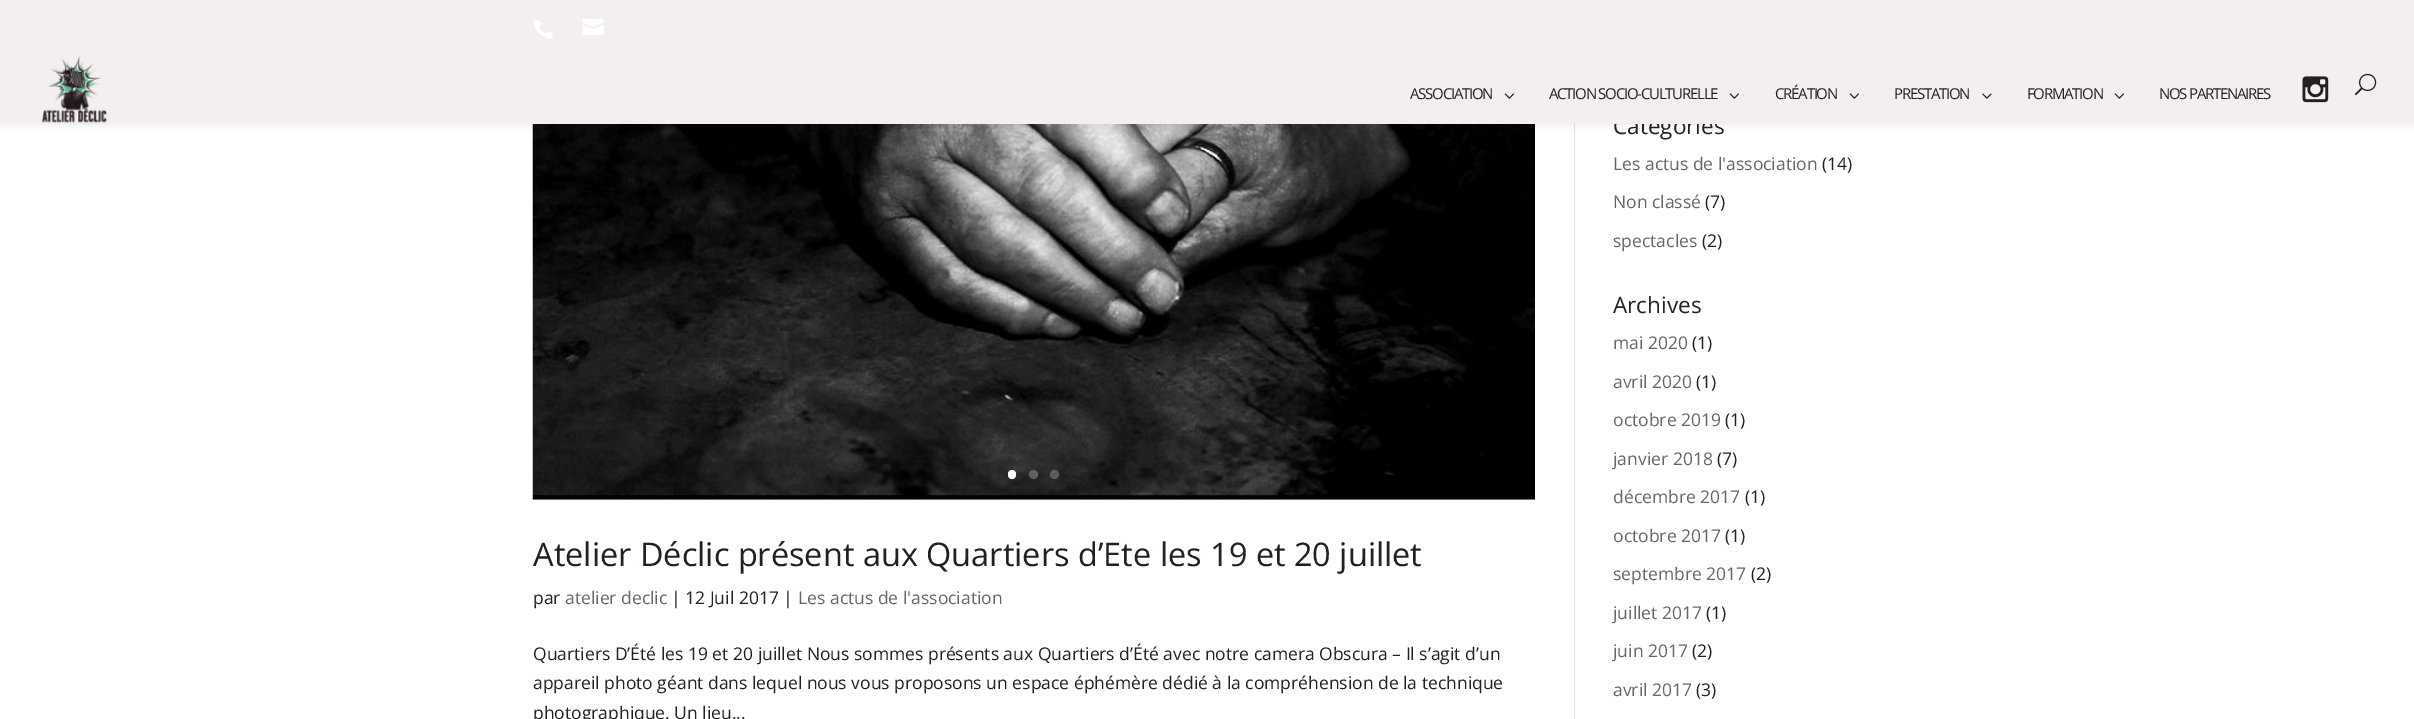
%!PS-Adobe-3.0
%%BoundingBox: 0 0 2414 719
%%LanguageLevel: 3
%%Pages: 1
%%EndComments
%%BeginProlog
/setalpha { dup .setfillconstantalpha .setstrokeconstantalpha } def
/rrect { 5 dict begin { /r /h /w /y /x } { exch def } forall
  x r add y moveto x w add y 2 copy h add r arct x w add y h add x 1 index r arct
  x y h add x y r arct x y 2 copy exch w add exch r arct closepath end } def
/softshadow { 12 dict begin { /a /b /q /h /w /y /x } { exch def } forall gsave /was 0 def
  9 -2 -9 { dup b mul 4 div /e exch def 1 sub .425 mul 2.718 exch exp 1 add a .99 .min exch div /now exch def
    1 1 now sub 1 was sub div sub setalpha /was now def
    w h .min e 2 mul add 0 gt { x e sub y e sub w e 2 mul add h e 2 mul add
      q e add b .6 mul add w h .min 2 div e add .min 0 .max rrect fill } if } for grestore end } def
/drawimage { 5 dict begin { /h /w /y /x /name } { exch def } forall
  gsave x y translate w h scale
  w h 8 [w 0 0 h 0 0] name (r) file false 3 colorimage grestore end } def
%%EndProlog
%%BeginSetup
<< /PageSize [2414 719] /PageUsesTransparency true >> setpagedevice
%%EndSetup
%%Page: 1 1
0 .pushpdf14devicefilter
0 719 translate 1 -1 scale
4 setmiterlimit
1 setgray
0 0 2414 719 rectfill
(images/8.raw) 532 124 1003 376 drawimage
0.886 setgray
1574 124 1 595 rectfill
0 setgray
0 55 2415 69 0 4.5 0.1 softshadow
1 setgray
1008 470 8 9 4 rrect fill
0.25 setalpha
newpath 1033.5 474.5 4.5 0 360 arc closepath fill
newpath 1054.5 474.5 4.5 0 360 arc closepath fill
/OpenSans-Regular [32.5 0 0 -32.5 0 0] selectfont
1 setalpha
0.141 0.122 0.129 setrgbcolor
533 566 moveto (Atelier Déclic présent aux Quartiers d’Ete les 19 et 20 juillet) show
/OpenSans-Regular [17.5 0 0 -17.5 0 0] selectfont
533 604 moveto (par) show
0.4 setgray
565 604 moveto (atelier declic) show
0.141 0.122 0.129 setrgbcolor
671 604 moveto (| 12 Juil 2017 |) show
0.4 setgray
798 604 moveto (Les actus de l'association) show
0.141 0.122 0.129 setrgbcolor
533 660 moveto (Quartiers D’Été les 19 et 20 juillet Nous sommes présents aux Quartiers d’Été avec notre camera Obscura – Il s’agit d’un) show
533 689 moveto (appareil photo géant dans lequel nous vous proposons un espace éphémère dédié à la compréhension de la technique) show
533 719 moveto (photographique. Un lieu...) show
/OpenSans-Regular [22.5 0 0 -22.5 0 0] selectfont
1613 134 moveto (Catégories) show
0.953 0.937 0.933 setrgbcolor
0 0 2414 124 rectfill
(images/2.raw) 582 19 22 16 drawimage
(images/1.raw) 533 20 20 19 drawimage
(images/7.raw) 2355 73 22 23 drawimage
(images/6.raw) 2302 76 27 27 drawimage
/OpenSans-Regular [15 0 0 -15 0 0] selectfont
0.141 0.122 0.129 setrgbcolor
2159 99 moveto -1.25 0 (NOS PARTENAIRES) ashow
(images/4.raw) 2114 93 10 6 drawimage
2027 99 moveto -1.25 0 (FORMATION) ashow
(images/5.raw) 1982 93 10 6 drawimage
1894 99 moveto -1.25 0 (PRESTATION) ashow
(images/4.raw) 1849 93 10 6 drawimage
1775 99 moveto -1.25 0 (CRÉATION) ashow
(images/4.raw) 1729 93 10 6 drawimage
1549 99 moveto -1.25 0 (ACTION SOCIO-CULTURELLE) ashow
(images/4.raw) 1504 93 10 6 drawimage
1410 99 moveto -1.25 0 (ASSOCIATION) ashow
(images/3.raw) 42 55 65 69 drawimage
/OpenSans-Regular [17.5 0 0 -17.5 0 0] selectfont
0.4 setgray
1613 170 moveto (Les actus de l'association) show
0.141 0.122 0.129 setrgbcolor
1822 170 moveto (\(14\)) show
0.4 setgray
1613 208 moveto (Non classé) show
0.141 0.122 0.129 setrgbcolor
1705 208 moveto (\(7\)) show
0.4 setgray
1613 247 moveto (spectacles) show
0.141 0.122 0.129 setrgbcolor
1702 247 moveto (\(2\)) show
/OpenSans-Regular [22.5 0 0 -22.5 0 0] selectfont
1613 313 moveto (Archives) show
/OpenSans-Regular [17.5 0 0 -17.5 0 0] selectfont
0.4 setgray
1613 349 moveto (mai 2020) show
0.141 0.122 0.129 setrgbcolor
1692 349 moveto (\(1\)) show
0.4 setgray
1613 388 moveto (avril 2020) show
0.141 0.122 0.129 setrgbcolor
1696 388 moveto (\(1\)) show
0.4 setgray
1613 426 moveto (octobre 2019) show
0.141 0.122 0.129 setrgbcolor
1725 426 moveto (\(1\)) show
0.4 setgray
1613 465 moveto (janvier 2018) show
0.141 0.122 0.129 setrgbcolor
1717 465 moveto (\(7\)) show
0.4 setgray
1613 503 moveto (décembre 2017) show
0.141 0.122 0.129 setrgbcolor
1745 503 moveto (\(1\)) show
0.4 setgray
1613 542 moveto (octobre 2017) show
0.141 0.122 0.129 setrgbcolor
1725 542 moveto (\(1\)) show
0.4 setgray
1613 580 moveto (septembre 2017) show
0.141 0.122 0.129 setrgbcolor
1751 580 moveto (\(2\)) show
0.4 setgray
1613 619 moveto (juillet 2017) show
0.141 0.122 0.129 setrgbcolor
1706 619 moveto (\(1\)) show
0.4 setgray
1613 657 moveto (juin 2017) show
0.141 0.122 0.129 setrgbcolor
1692 657 moveto (\(2\)) show
0.4 setgray
1613 696 moveto (avril 2017) show
0.141 0.122 0.129 setrgbcolor
1696 696 moveto (\(3\)) show
.poppdf14devicefilter showpage
%%EOF
